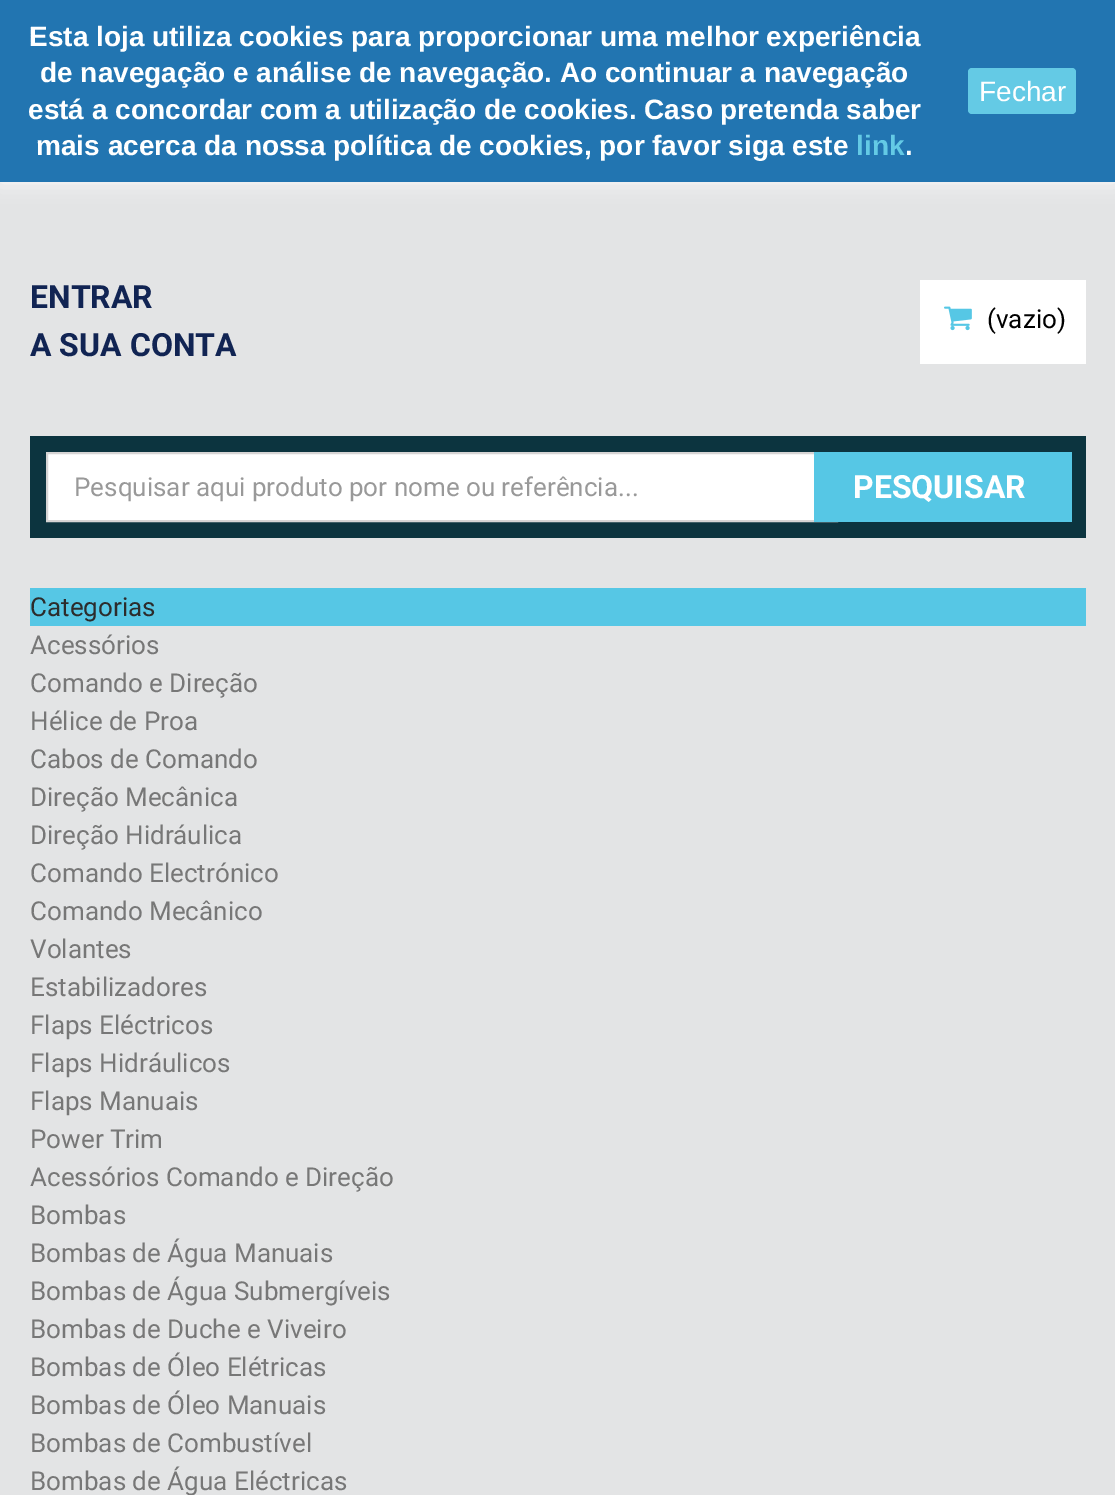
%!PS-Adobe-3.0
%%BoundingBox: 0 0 1115 1495
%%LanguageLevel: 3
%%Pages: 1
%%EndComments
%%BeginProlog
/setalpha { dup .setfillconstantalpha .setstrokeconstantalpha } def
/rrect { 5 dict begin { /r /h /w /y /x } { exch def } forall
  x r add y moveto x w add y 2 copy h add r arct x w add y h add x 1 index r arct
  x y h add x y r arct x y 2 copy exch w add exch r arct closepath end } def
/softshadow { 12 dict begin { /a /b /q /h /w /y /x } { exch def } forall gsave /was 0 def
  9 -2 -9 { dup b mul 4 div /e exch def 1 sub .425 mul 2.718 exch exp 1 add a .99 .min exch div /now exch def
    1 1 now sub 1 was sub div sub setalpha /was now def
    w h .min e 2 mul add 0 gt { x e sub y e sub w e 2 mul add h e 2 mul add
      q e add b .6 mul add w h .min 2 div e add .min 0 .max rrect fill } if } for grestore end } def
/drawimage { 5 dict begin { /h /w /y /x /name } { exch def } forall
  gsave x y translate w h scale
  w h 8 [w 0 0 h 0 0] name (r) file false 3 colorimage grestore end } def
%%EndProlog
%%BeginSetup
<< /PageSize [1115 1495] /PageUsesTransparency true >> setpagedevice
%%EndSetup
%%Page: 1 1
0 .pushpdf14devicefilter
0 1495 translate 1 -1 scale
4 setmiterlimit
0.89 0.894 0.898 setrgbcolor
0 0 1115 1495 rectfill
0.988 setgray
0 0 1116 182 0 10 1 softshadow
0.133 0.459 0.694 setrgbcolor
0 0 1115 182 rectfill
0.392 0.792 0.898 setrgbcolor
968 68 108 46 4 rrect fill
1 setgray
920 280 166 84 rectfill
(images/1.raw) 944 306 28 25 drawimage
0.047 0.204 0.247 setrgbcolor
46 436 1026 16 rectfill
1072 436 14 86 rectfill
46 522 1040 16 rectfill
30 436 16 102 rectfill
1 setgray
48 454 766 66 rectfill
0.839 0.831 0.831 setrgbcolor
2 setlinewidth
47 453 790 68 rectstroke
0.337 0.78 0.898 setrgbcolor
814 452 258 70 rectfill
30 588 1056 38 rectfill
/LiberationSans-Bold [28 0 0 -28 0 0] selectfont
1 setgray
29 46 moveto (Esta loja utiliza cookies para proporcionar uma melhor experiência) show
40 82 moveto (de navegação e análise de navegação. Ao continuar a navegação) show
28 119 moveto (está a concordar com a utilização de cookies. Caso pretenda saber) show
36 155 moveto (mais acerca da nossa política de cookies, por favor siga este) show
0.392 0.792 0.898 setrgbcolor
856 155 moveto (link) show
1 setgray
905 155 moveto (.) show
/LiberationSans-Regular [28 0 0 -28 0 0] selectfont
979 101 moveto (Fechar) show
/Roboto-Bold [32 0 0 -32 0 0] selectfont
0.067 0.141 0.325 setrgbcolor
30 308 moveto (ENTRAR) show
30 356 moveto (A SUA CONTA) show
/Roboto-Regular [26 0 0 -26 0 0] selectfont
0 setgray
987 328 moveto (\(vazio\)) show
0.6 setgray
74 496 moveto (Pesquisar aqui produto por nome ou referência...) show
/Roboto-Bold [32 0 0 -32 0 0] selectfont
1 setgray
853 498 moveto (PESQUISAR) show
/Roboto-Regular [26 0 0 -26 0 0] selectfont
0.173 setgray
30 616 moveto (Categorias) show
0.467 setgray
30 654 moveto (Acessórios) show
30 692 moveto (Comando e Direção) show
30 730 moveto (Hélice de Proa) show
30 768 moveto (Cabos de Comando) show
30 806 moveto (Direção Mecânica) show
30 844 moveto (Direção Hidráulica) show
30 882 moveto (Comando Electrónico) show
30 920 moveto (Comando Mecânico) show
30 958 moveto (Volantes) show
30 996 moveto (Estabilizadores) show
30 1034 moveto (Flaps Eléctricos) show
30 1072 moveto (Flaps Hidráulicos) show
30 1110 moveto (Flaps Manuais) show
30 1148 moveto (Power Trim) show
30 1186 moveto (Acessórios Comando e Direção) show
30 1224 moveto (Bombas) show
30 1262 moveto (Bombas de Água Manuais) show
30 1300 moveto (Bombas de Água Submergíveis) show
30 1338 moveto (Bombas de Duche e Viveiro) show
30 1376 moveto (Bombas de Óleo Elétricas) show
30 1414 moveto (Bombas de Óleo Manuais) show
30 1452 moveto (Bombas de Combustível) show
30 1490 moveto (Bombas de Água Eléctricas) show
.poppdf14devicefilter showpage
%%EOF
